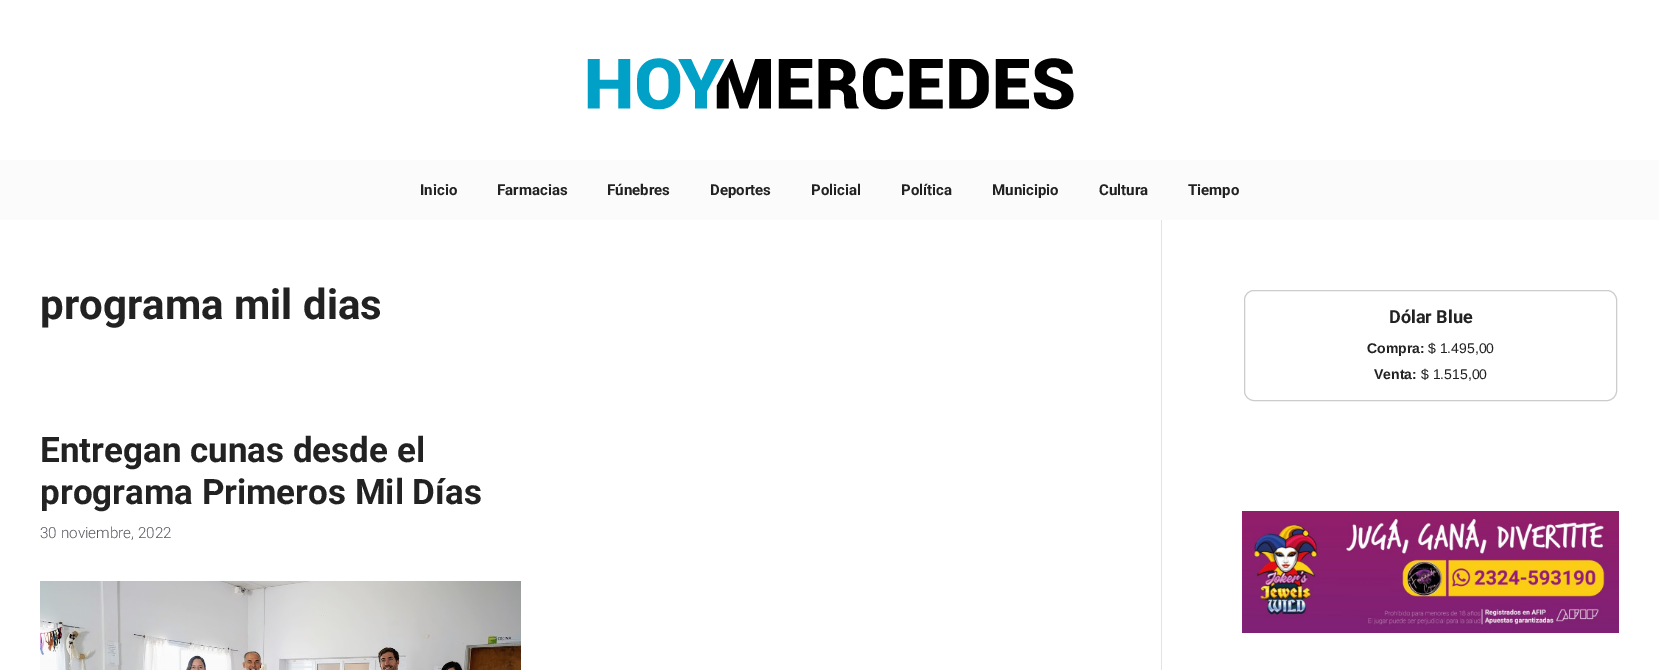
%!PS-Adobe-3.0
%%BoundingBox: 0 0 1659 670
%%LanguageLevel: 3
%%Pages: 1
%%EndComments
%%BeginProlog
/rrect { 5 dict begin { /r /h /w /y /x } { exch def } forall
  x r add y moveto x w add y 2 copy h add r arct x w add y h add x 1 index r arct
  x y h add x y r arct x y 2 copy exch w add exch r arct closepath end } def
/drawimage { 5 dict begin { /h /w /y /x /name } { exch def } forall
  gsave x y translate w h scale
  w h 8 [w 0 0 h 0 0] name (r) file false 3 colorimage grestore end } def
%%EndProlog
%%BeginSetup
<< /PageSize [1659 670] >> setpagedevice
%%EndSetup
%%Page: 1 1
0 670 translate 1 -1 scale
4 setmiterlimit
1 setgray
0 0 1659 670 rectfill
(images/1.raw) 587 58 487 52 drawimage
0.984 setgray
0 160 1659 60 rectfill
(images/2.raw) 40 581 481 89 drawimage
0.886 0.89 0.89 setrgbcolor
1161 220 1 450 rectfill
0.8 setgray
1244.5 290.5 372 110 9.5 rrect stroke
(images/3.raw) 1242 511 377 122 drawimage
/Roboto-Bold [15 0 0 -15 0 0] selectfont
0.133 setgray
420 195 moveto (Inicio) show
497 195 moveto (Farmacias) show
607 195 moveto (Fúnebres) show
710 195 moveto (Deportes) show
811 195 moveto (Policial) show
901 195 moveto (Política) show
992 195 moveto (Municipio) show
1099 195 moveto (Cultura) show
1188 195 moveto (Tiempo) show
/Roboto-Bold [42 0 0 -42 0 0] selectfont
40 319 moveto (programa mil dias) show
/Roboto-Bold [35 0 0 -35 0 0] selectfont
40 462 moveto (Entregan cunas desde el) show
40 504 moveto (programa Primeros Mil Días) show
/Roboto-Light [15.25 0 0 -15.25 0 0] selectfont
0.341 0.341 0.376 setrgbcolor
40 538 moveto (30 noviembre, 2022) show
/Roboto-Bold [18 0 0 -18 0 0] selectfont
0.133 setgray
1389 323 moveto (Dólar Blue) show
/LiberationSans-Bold [14 0 0 -14 0 0] selectfont
1367 353 moveto (Compra:) show
/LiberationSans-Regular [14 0 0 -14 0 0] selectfont
1428 353 moveto ($ 1.495,00) show
/LiberationSans-Bold [14 0 0 -14 0 0] selectfont
1374 379 moveto (Venta:) show
/LiberationSans-Regular [14 0 0 -14 0 0] selectfont
1421 379 moveto ($ 1.515,00) show
showpage
%%EOF
